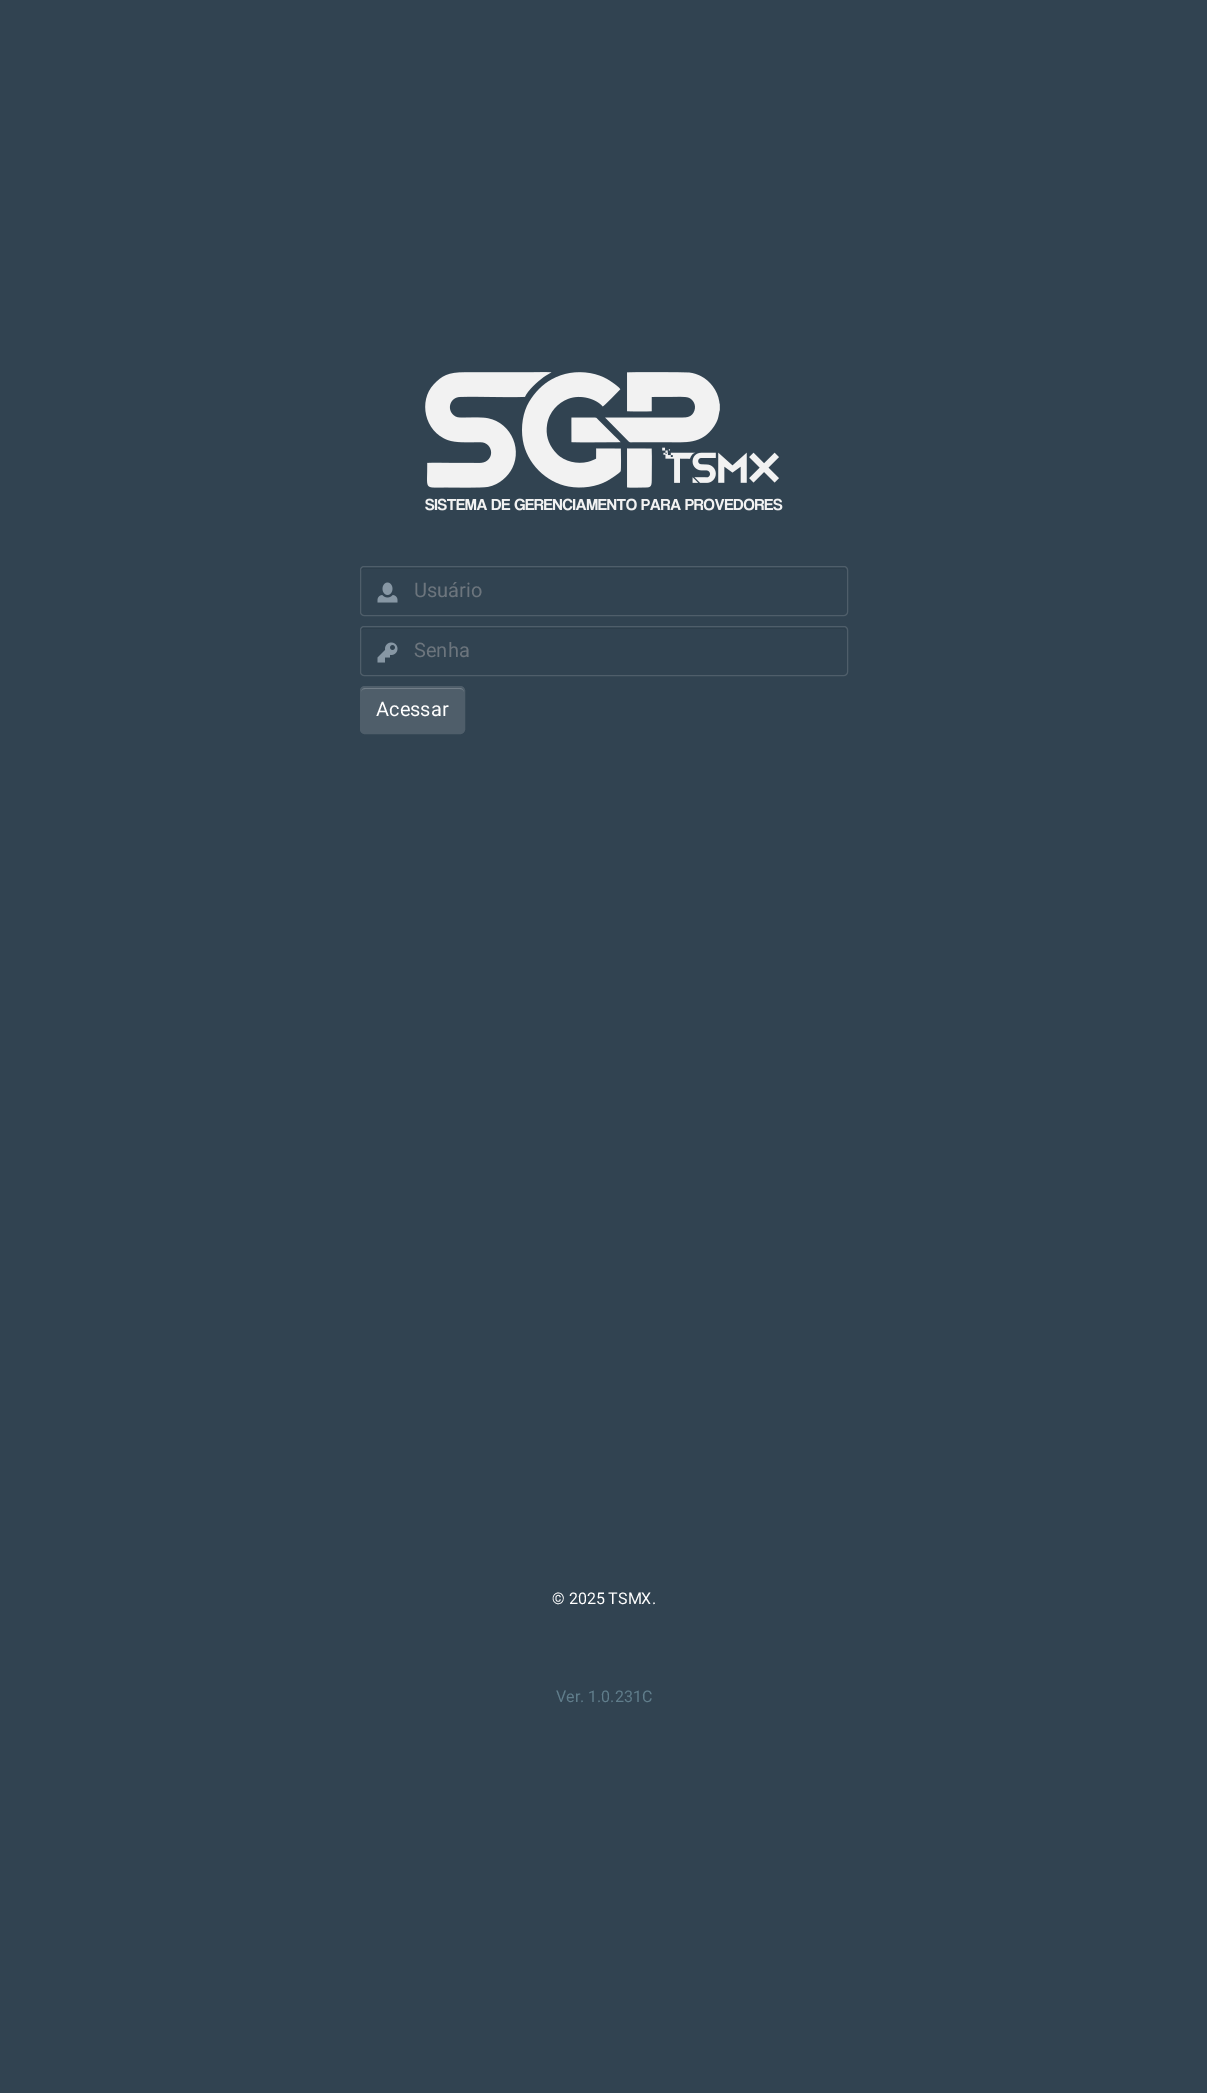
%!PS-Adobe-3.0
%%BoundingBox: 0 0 1207 2093
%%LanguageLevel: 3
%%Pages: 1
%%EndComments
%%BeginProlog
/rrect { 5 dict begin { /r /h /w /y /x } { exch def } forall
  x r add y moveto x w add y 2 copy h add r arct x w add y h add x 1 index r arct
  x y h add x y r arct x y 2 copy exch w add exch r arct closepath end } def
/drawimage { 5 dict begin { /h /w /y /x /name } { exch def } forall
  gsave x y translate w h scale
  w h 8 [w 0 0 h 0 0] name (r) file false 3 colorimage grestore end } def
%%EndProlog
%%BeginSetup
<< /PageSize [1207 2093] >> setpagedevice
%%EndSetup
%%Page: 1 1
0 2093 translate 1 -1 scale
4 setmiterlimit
0.192 0.263 0.318 setrgbcolor
0 0 1207 2093 rectfill
(images/1.raw) 425 372 358 139 drawimage
0.176 0.243 0.294 setrgbcolor
newpath 364 569 moveto 844 569 lineto 845 569 846 570 846 571 curveto 846 569 845 568 844 568 curveto 364 568 lineto 362 568 361 569 361 571 curveto 361 570 362 569 364 569 curveto closepath fill
0.31 0.369 0.416 setrgbcolor
360.5 566.5 487 49 3.5 rrect stroke
(images/2.raw) 377 582 21 21 drawimage
0.176 0.243 0.294 setrgbcolor
newpath 364 629 moveto 844 629 lineto 845 629 846 630 846 631 curveto 846 629 845 628 844 628 curveto 364 628 lineto 362 628 361 629 361 631 curveto 361 630 362 629 364 629 curveto closepath fill
0.31 0.369 0.416 setrgbcolor
360.5 626.5 487 49 3.5 rrect stroke
(images/3.raw) 377 642 21 21 drawimage
360 686 105 48 5 rrect fill
0.447 0.494 0.533 setrgbcolor
newpath 365 689 moveto 460 689 lineto 462 689 464 690 464 692 curveto 464 690 462 688 460 688 curveto 365 688 lineto 363 688 361 690 361 692 curveto 361 690 363 689 365 689 curveto closepath fill
0.31 0.369 0.416 setrgbcolor
360.5 686.5 104 47 4.5 rrect stroke
/Roboto-Regular [20 0 0 -20 0 0] selectfont
0.424 0.459 0.49 setrgbcolor
414 597 moveto (Usuário) show
414 657 moveto (Senha) show
1 setgray
376 716 moveto (Acessar) show
/Roboto-Regular [16 0 0 -16 0 0] selectfont
552 1604 moveto (© 2025 TSMX.) show
0.376 0.49 0.545 setrgbcolor
556 1702 moveto (Ver. 1.0.231C) show
showpage
%%EOF
